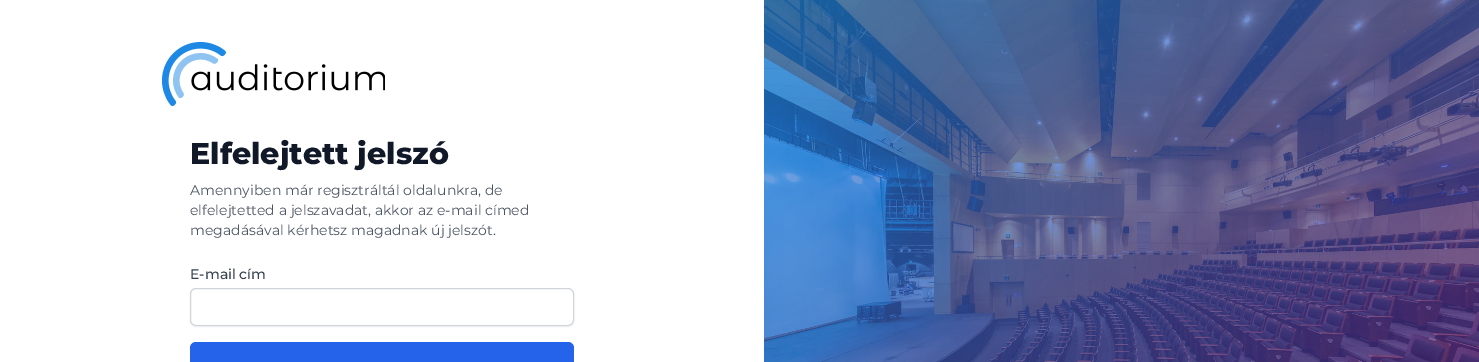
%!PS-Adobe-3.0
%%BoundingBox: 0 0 1479 362
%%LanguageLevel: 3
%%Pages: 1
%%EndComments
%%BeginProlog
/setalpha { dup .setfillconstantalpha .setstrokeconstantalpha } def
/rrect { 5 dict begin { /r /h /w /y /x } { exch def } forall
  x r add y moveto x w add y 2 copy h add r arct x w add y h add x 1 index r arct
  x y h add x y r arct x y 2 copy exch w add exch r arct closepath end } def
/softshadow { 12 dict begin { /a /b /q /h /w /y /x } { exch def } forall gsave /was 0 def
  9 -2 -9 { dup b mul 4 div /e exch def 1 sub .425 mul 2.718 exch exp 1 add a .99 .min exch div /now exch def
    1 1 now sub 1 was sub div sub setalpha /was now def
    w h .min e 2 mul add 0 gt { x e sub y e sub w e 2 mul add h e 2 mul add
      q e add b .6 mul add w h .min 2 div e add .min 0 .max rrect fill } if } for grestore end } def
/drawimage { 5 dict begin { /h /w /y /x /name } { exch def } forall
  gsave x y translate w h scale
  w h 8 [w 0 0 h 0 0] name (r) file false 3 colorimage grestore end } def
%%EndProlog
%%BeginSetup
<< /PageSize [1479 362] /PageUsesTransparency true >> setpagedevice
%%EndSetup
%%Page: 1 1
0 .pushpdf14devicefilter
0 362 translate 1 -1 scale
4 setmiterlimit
1 setgray
0 0 1479 362 rectfill
(images/1.raw) 162 42 223 64 drawimage
0 setgray
190 289 384 38 6 1 0.05 softshadow
1 setgray
190.5 288.5 383 37 5.5 rrect gsave fill grestore
0.82 0.835 0.859 setrgbcolor
stroke
0.145 0.388 0.922 setrgbcolor
190 342 384 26 6 rrect fill
gsave newpath 764 0 moveto 1479 0 lineto 1479 362 lineto 764 362 lineto closepath clip newpath
<< /ShadingType 2 /ColorSpace /DeviceRGB /Coords [877 -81 1366 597] /Extend [true true] /Function << /FunctionType 2 /Domain [0 1] /C0 [0.118 0.533 0.898] /C1 [0.357 0.114 0.498] /N 1 >> >> shfill grestore
(images/2.raw) 764 0 715 362 drawimage
/Montserrat-ExtraBold [30 0 0 -30 0 0] selectfont
0.067 0.094 0.153 setrgbcolor
190 164 moveto (Elfelejtett jelszó) show
/Montserrat-Regular [14 0 0 -14 0 0] selectfont
0.294 0.333 0.388 setrgbcolor
190 195 moveto (Amennyiben már regisztráltál oldalunkra, de) show
190 215 moveto (elfelejtetted a jelszavadat, akkor az e-mail címed) show
190 235 moveto (megadásával kérhetsz magadnak új jelszót.) show
/Montserrat-Medium [14 0 0 -14 0 0] selectfont
0.216 0.255 0.318 setrgbcolor
190 279 moveto (E-mail cím) show
.poppdf14devicefilter showpage
%%EOF
